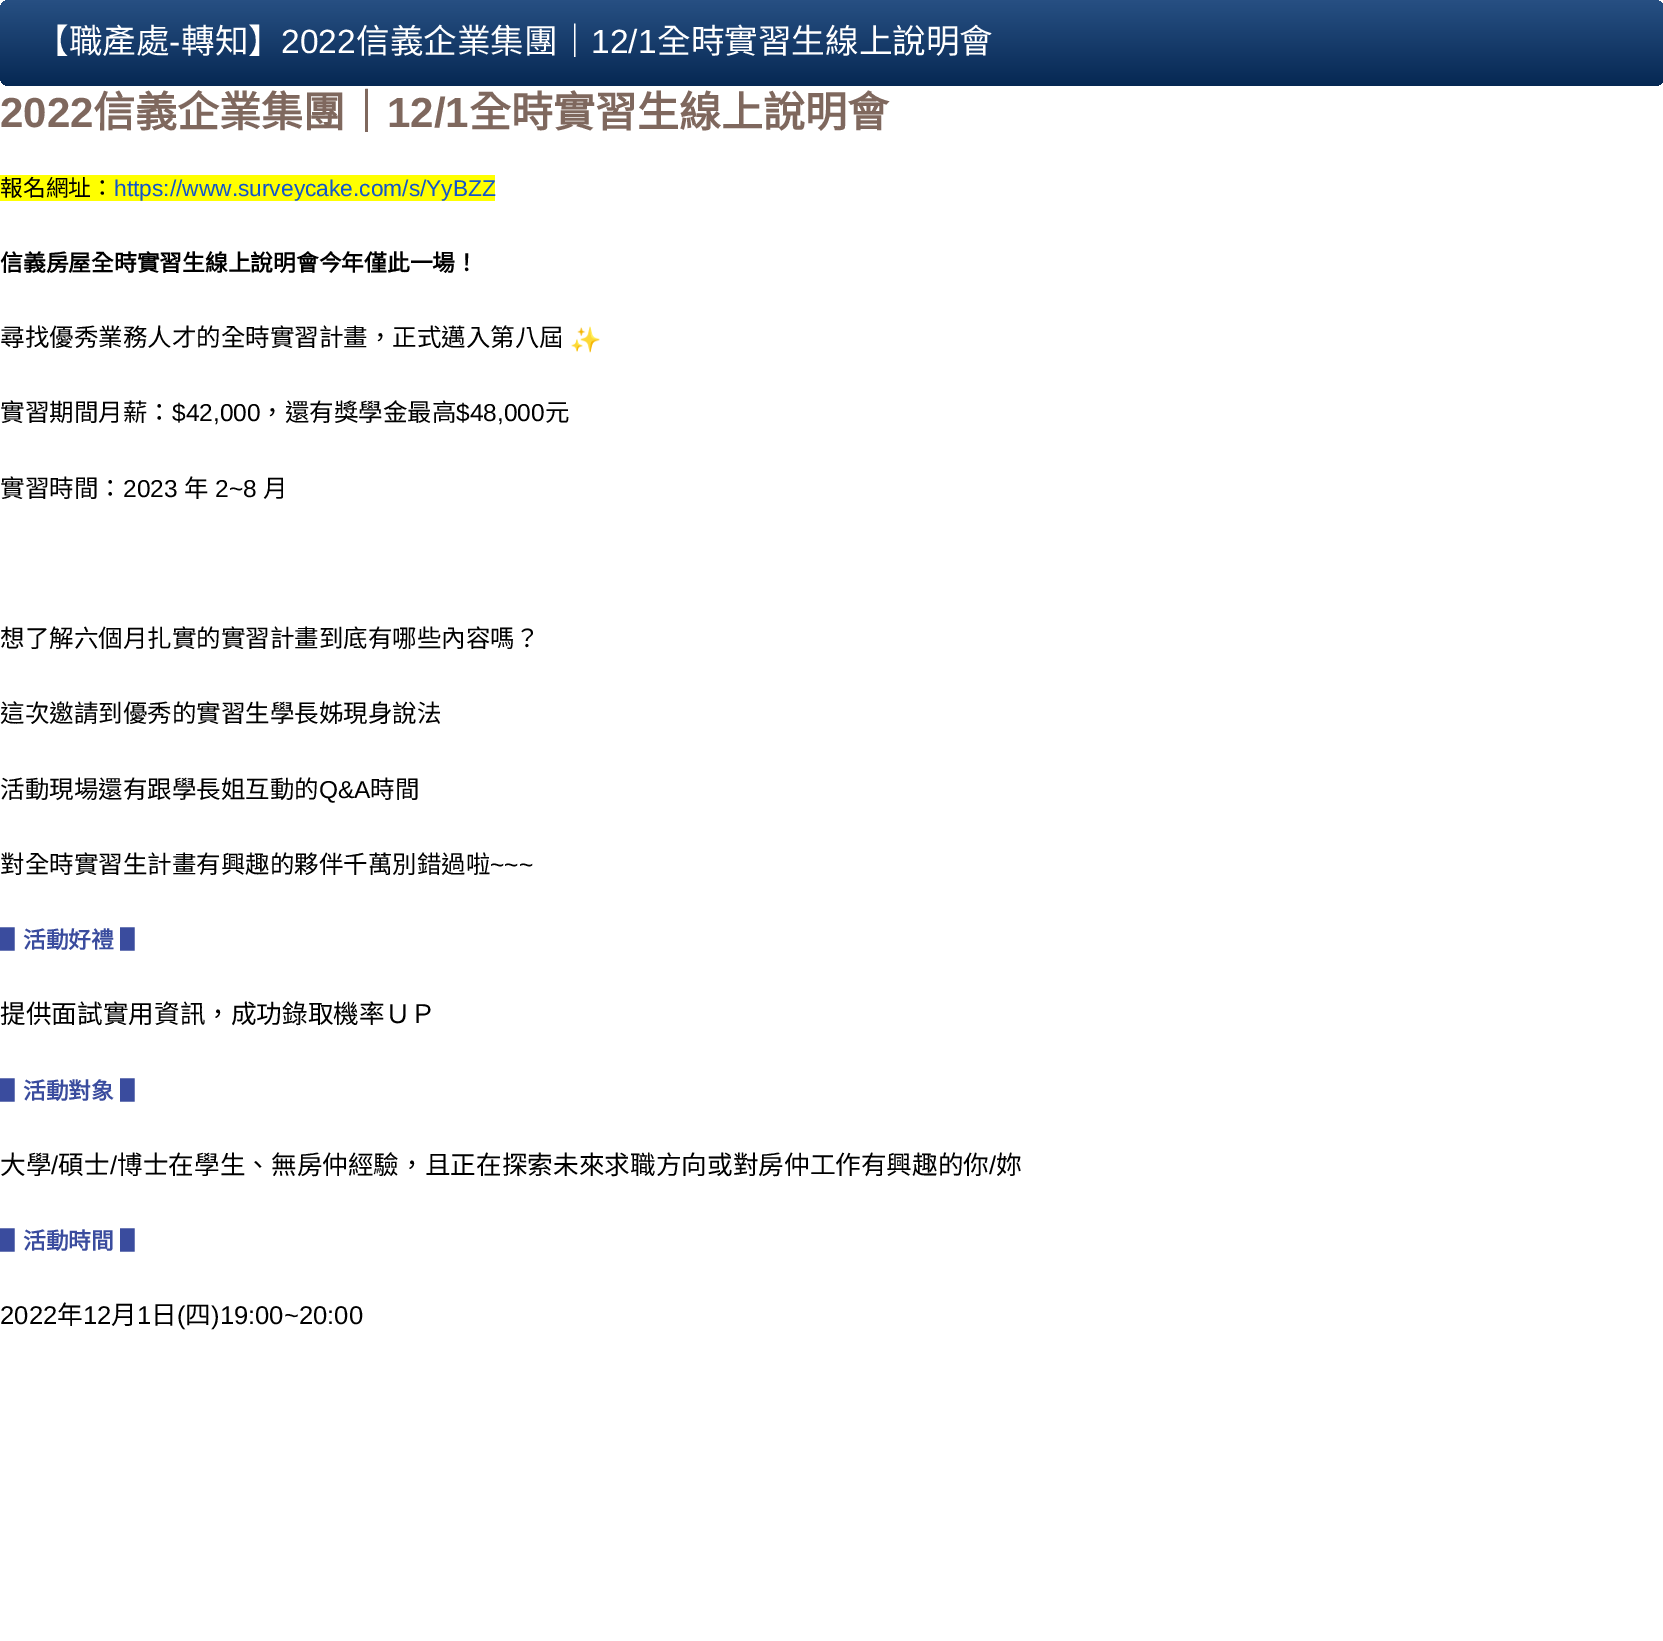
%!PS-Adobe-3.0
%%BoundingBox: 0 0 1663 1641
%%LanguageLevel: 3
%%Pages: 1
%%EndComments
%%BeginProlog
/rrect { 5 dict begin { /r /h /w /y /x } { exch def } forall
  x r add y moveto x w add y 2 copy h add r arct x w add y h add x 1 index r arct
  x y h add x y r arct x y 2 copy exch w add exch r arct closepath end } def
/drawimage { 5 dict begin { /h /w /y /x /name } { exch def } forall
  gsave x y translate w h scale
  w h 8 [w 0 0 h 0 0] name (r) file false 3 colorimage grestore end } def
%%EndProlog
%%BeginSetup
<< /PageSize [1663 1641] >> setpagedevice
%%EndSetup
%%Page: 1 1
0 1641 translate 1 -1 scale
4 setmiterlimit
1 setgray
0 0 1663 1641 rectfill
gsave 0 0 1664 86 9 rrect clip newpath
<< /ShadingType 2 /ColorSpace /DeviceRGB /Coords [832 0 832 86] /Extend [true true] /Function << /FunctionType 3 /Domain [0 1] /Functions [<< /FunctionType 2 /Domain [0 1] /C0 [0.153 0.31 0.51] /C1 [0.153 0.31 0.51] /N 1 >> << /FunctionType 2 /Domain [0 1] /C0 [0.153 0.31 0.51] /C1 [0.024 0.157 0.325] /N 1 >>] /Bounds [0.01] /Encode [0 1 0 1] >> >> shfill grestore
1 1 0 setrgbcolor
0 175 495 26 rectfill
(images/1.raw) 571 326 29 27 drawimage
/NotoSansCJKTC-Regular [33.6 0 0 -33.6 0 0] selectfont
1 setgray
35 53 moveto (【職產處) show
/LiberationSans-Regular [33.6 0 0 -33.6 0 0] selectfont
169 53 moveto (-) show
/NotoSansCJKTC-Regular [33.6 0 0 -33.6 0 0] selectfont
181 53 moveto (轉知】) show
/LiberationSans-Regular [33.6 0 0 -33.6 0 0] selectfont
281 53 moveto (2022) show
/NotoSansCJKTC-Regular [33.6 0 0 -33.6 0 0] selectfont
356 53 moveto (信義企業集團｜) show
/LiberationSans-Regular [33.6 0 0 -33.6 0 0] selectfont
591 53 moveto (12/1) show
/NotoSansCJKTC-Regular [33.6 0 0 -33.6 0 0] selectfont
657 53 moveto (全時實習生線上說明會) show
/LiberationSans-Bold [42 0 0 -42 0 0] selectfont
0.498 0.408 0.369 setrgbcolor
0 127 moveto (2022) show
/NotoSansCJKTC-Bold [42 0 0 -42 0 0] selectfont
93 127 moveto (信義企業集團｜) show
/LiberationSans-Bold [42 0 0 -42 0 0] selectfont
387 127 moveto (12/1) show
/NotoSansCJKTC-Bold [42 0 0 -42 0 0] selectfont
469 127 moveto (全時實習生線上說明會) show
/NotoSansCJKTC-Regular [22.75 0 0 -22.75 0 0] selectfont
0 setgray
0 196 moveto (報名網址：) show
/LiberationSans-Regular [22.75 0 0 -22.75 0 0] selectfont
0.067 0.333 0.8 setrgbcolor
114 196 moveto (https://www.surveycake.com/s/YyBZZ) show
/NotoSansCJKTC-Bold [22.75 0 0 -22.75 0 0] selectfont
0 setgray
0 271 moveto (信義房屋全時實習生線上說明會今年僅此一場！) show
/NotoSansCJKTC-Regular [24.5 0 0 -24.5 0 0] selectfont
0 346 moveto (尋找優秀業務人才的全時實習計畫，正式邁入第八屆) show
0 421 moveto (實習期間月薪：) show
/LiberationSans-Regular [24.5 0 0 -24.5 0 0] selectfont
172 421 moveto ($42,000) show
/NotoSansCJKTC-Regular [24.5 0 0 -24.5 0 0] selectfont
260 421 moveto (，還有獎學金最高) show
/LiberationSans-Regular [24.5 0 0 -24.5 0 0] selectfont
456 421 moveto ($48,000) show
/NotoSansCJKTC-Regular [24.5 0 0 -24.5 0 0] selectfont
545 421 moveto (元) show
0 497 moveto (實習時間：) show
/LiberationSans-Regular [24.5 0 0 -24.5 0 0] selectfont
123 497 moveto (2023) show
/NotoSansCJKTC-Regular [24.5 0 0 -24.5 0 0] selectfont
184 497 moveto (年) show
/LiberationSans-Regular [24.5 0 0 -24.5 0 0] selectfont
215 497 moveto (2~8) show
/NotoSansCJKTC-Regular [24.5 0 0 -24.5 0 0] selectfont
263 497 moveto (月) show
0 647 moveto (想了解六個月扎實的實習計畫到底有哪些內容嗎？) show
0 722 moveto (這次邀請到優秀的實習生學長姊現身說法) show
0 798 moveto (活動現場還有跟學長姐互動的) show
/LiberationSans-Regular [24.5 0 0 -24.5 0 0] selectfont
319 798 moveto (Q&A) show
/NotoSansCJKTC-Regular [24.5 0 0 -24.5 0 0] selectfont
370 798 moveto (時間) show
0 873 moveto (對全時實習生計畫有興趣的夥伴千萬別錯過啦) show
/LiberationSans-Regular [24.5 0 0 -24.5 0 0] selectfont
490 873 moveto (~~~) show
/NotoSansCJKTC-Bold [22.75 0 0 -22.75 0 0] selectfont
0.227 0.298 0.62 setrgbcolor
0 948 moveto 1 0 32 (▋活動好禮 ▋) widthshow
/NotoSansCJKTC-Regular [25.65 0 0 -25.65 0 0] selectfont
0 setgray
0 1023 moveto (提供面試實用資訊，成功錄取機率ＵＰ) show
/NotoSansCJKTC-Bold [22.75 0 0 -22.75 0 0] selectfont
0.227 0.298 0.62 setrgbcolor
0 1099 moveto 1 0 32 (▋活動對象 ▋) widthshow
/NotoSansCJKTC-Regular [25.65 0 0 -25.65 0 0] selectfont
0 setgray
0 1174 moveto (大學) show
/LiberationSans-Regular [25.65 0 0 -25.65 0 0] selectfont
51 1174 moveto (/) show
/NotoSansCJKTC-Regular [25.65 0 0 -25.65 0 0] selectfont
58 1174 moveto (碩士) show
/LiberationSans-Regular [25.65 0 0 -25.65 0 0] selectfont
110 1174 moveto (/) show
/NotoSansCJKTC-Regular [25.65 0 0 -25.65 0 0] selectfont
117 1174 moveto (博士在學生、無房仲經驗，且正在探索未來求職方向或對房仲工作有興趣的你) show
/LiberationSans-Regular [25.65 0 0 -25.65 0 0] selectfont
989 1174 moveto (/) show
/NotoSansCJKTC-Regular [25.65 0 0 -25.65 0 0] selectfont
996 1174 moveto (妳) show
/NotoSansCJKTC-Bold [22.75 0 0 -22.75 0 0] selectfont
0.227 0.298 0.62 setrgbcolor
0 1249 moveto (▋活動時間) show
120 1249 moveto (▋) show
/LiberationSans-Regular [25.65 0 0 -25.65 0 0] selectfont
0 setgray
0 1324 moveto (2022) show
/NotoSansCJKTC-Regular [25.65 0 0 -25.65 0 0] selectfont
57 1324 moveto (年) show
/LiberationSans-Regular [25.65 0 0 -25.65 0 0] selectfont
83 1324 moveto (12) show
/NotoSansCJKTC-Regular [25.65 0 0 -25.65 0 0] selectfont
111 1324 moveto (月) show
/LiberationSans-Regular [25.65 0 0 -25.65 0 0] selectfont
137 1324 moveto (1) show
/NotoSansCJKTC-Regular [25.65 0 0 -25.65 0 0] selectfont
151 1324 moveto (日) show
/LiberationSans-Regular [25.65 0 0 -25.65 0 0] selectfont
177 1324 moveto (\() show
/NotoSansCJKTC-Regular [25.65 0 0 -25.65 0 0] selectfont
185 1324 moveto (四) show
/LiberationSans-Regular [25.65 0 0 -25.65 0 0] selectfont
211 1324 moveto (\)19:00~20:00) show
showpage
%%EOF
